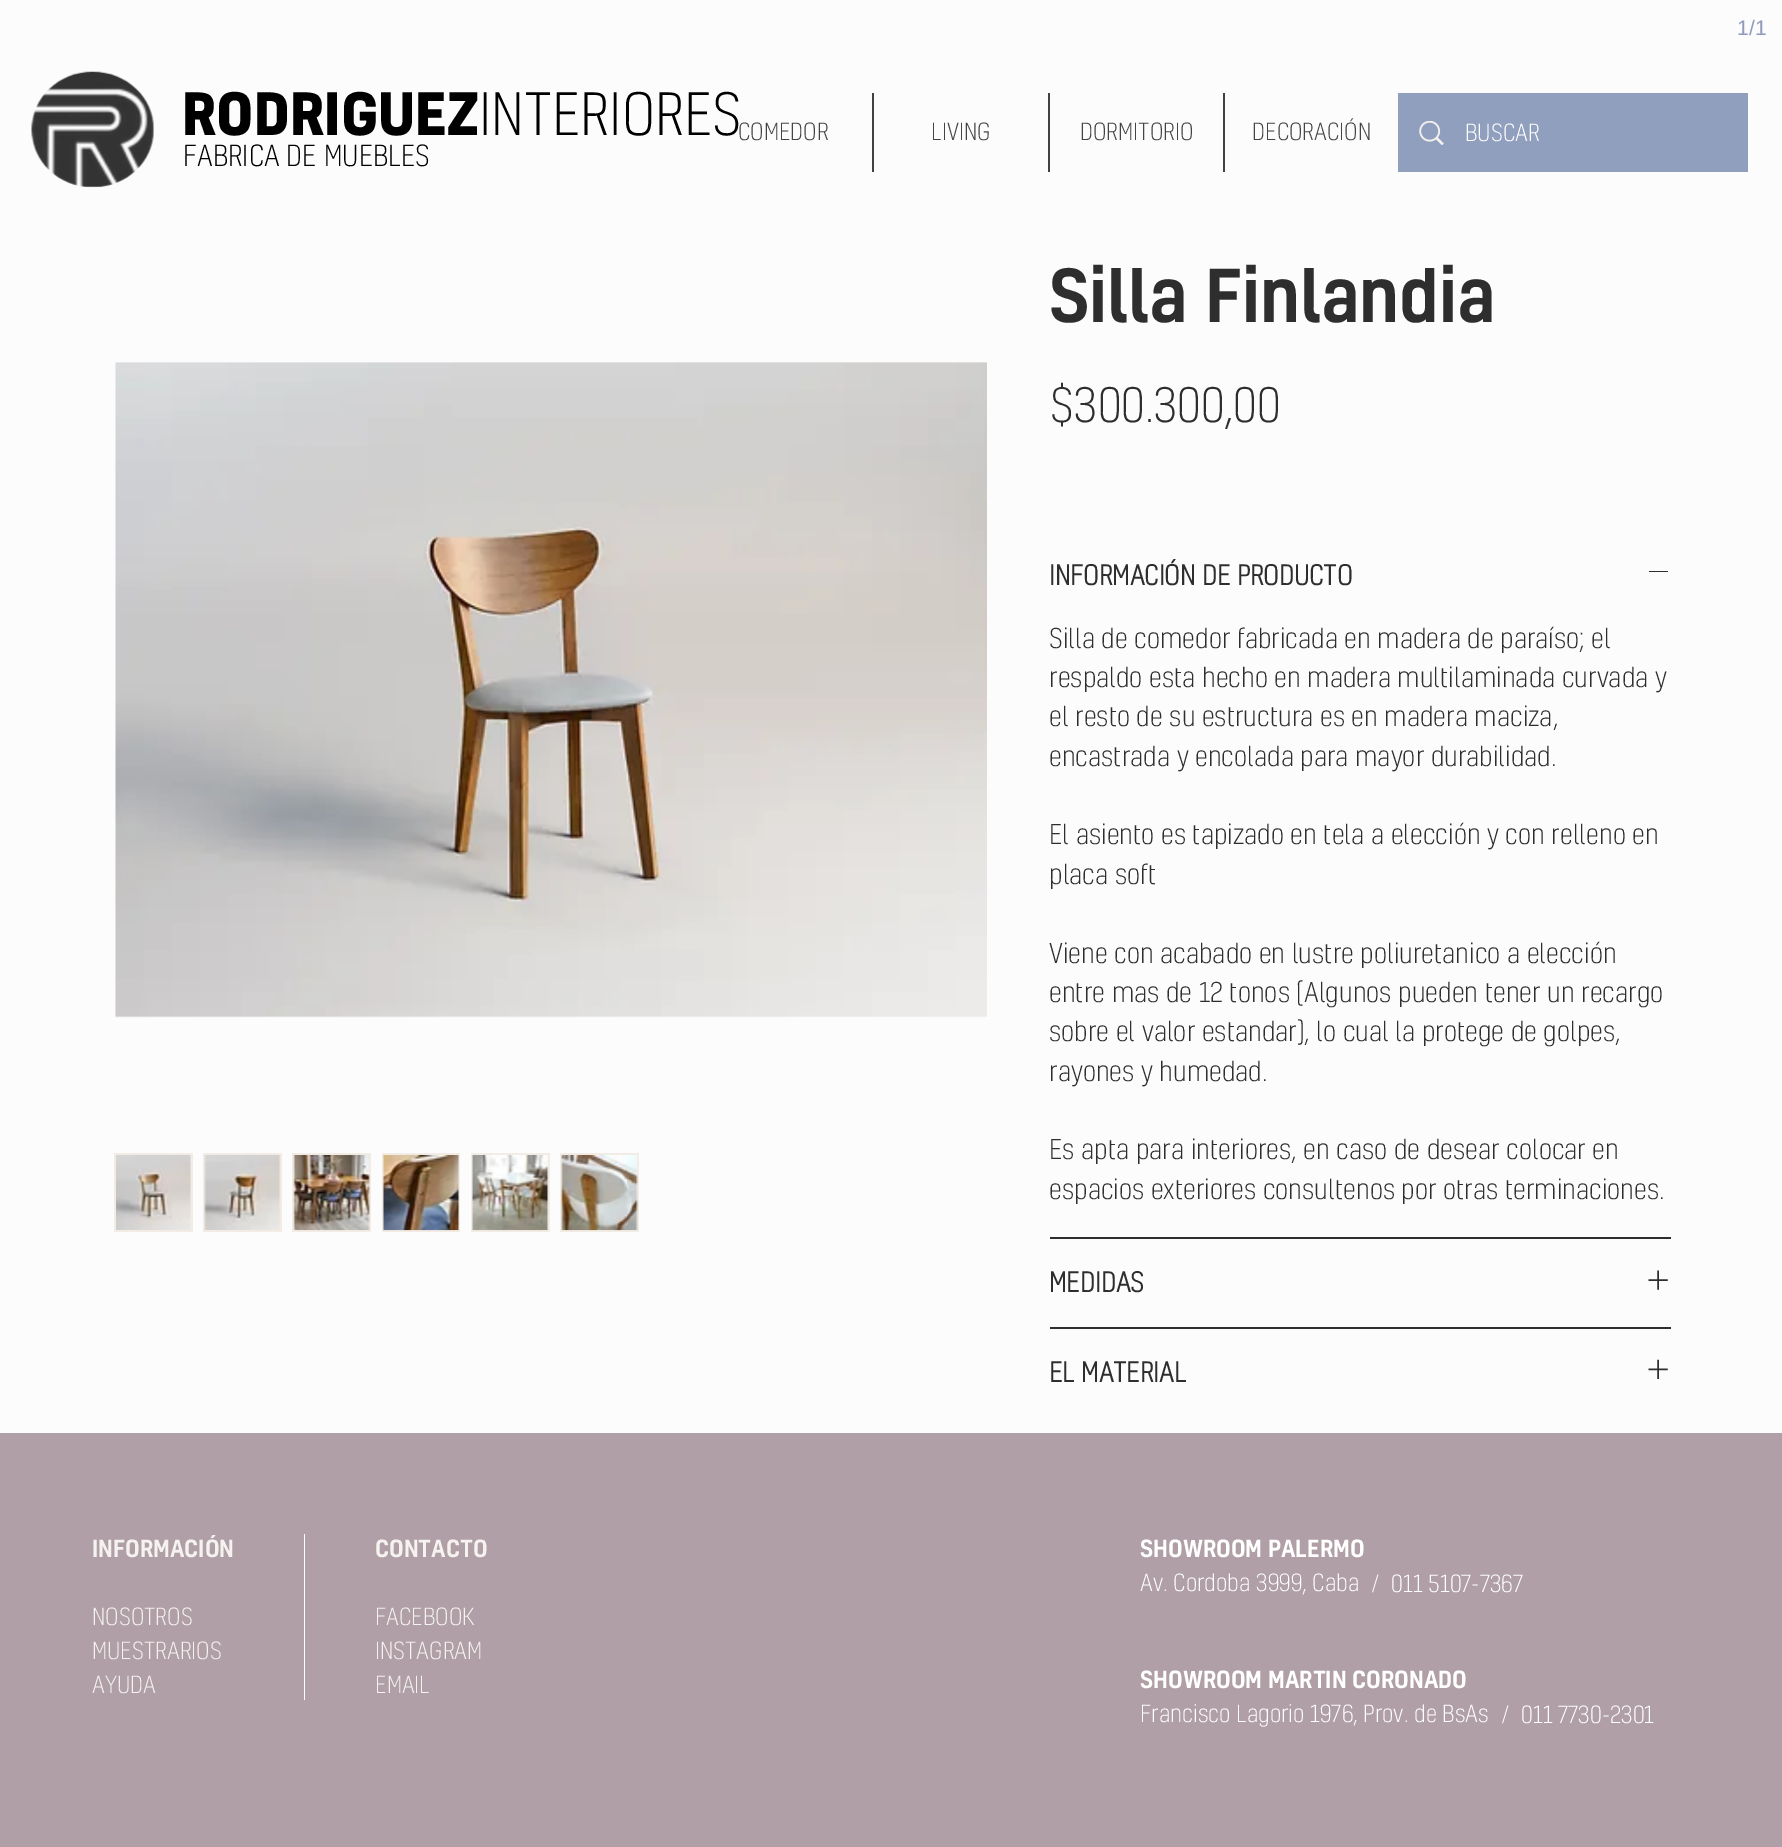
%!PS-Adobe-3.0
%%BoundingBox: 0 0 1782 1847
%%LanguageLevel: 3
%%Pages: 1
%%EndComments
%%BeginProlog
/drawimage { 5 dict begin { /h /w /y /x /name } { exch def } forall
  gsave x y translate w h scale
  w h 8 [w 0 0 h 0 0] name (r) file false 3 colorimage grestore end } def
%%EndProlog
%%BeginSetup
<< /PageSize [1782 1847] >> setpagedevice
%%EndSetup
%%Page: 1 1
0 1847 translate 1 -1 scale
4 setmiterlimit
0.988 setgray
0 0 1782 1847 rectfill
(images/1.raw) 31 71 123 117 drawimage
0.255 setgray
872 93 2 79 rectfill
1048 93 2 79 rectfill
1223 93 2 79 rectfill
0.569 0.624 0.749 setrgbcolor
1398 93 350 79 rectfill
(images/2.raw) 1419 121 25 24 drawimage
(images/3.raw) 115 362 872 656 drawimage
0.949 0.925 0.894 setrgbcolor
114 1153 79 79 rectfill
(images/4.raw) 116 1155 75 75 drawimage
203 1153 79 79 rectfill
(images/5.raw) 204 1155 77 75 drawimage
292 1153 79 79 rectfill
(images/6.raw) 293 1155 77 76 drawimage
382 1153 78 79 rectfill
(images/7.raw) 382 1155 77 76 drawimage
471 1153 79 79 rectfill
(images/8.raw) 472 1155 77 76 drawimage
560 1153 79 79 rectfill
(images/9.raw) 561 1155 77 76 drawimage
0.184 0.18 0.18 setrgbcolor
1050 1237 621 2 rectfill
1649 571 19 1 rectfill
1050 1327 621 2 rectfill
(images/10.raw) 1648 1270 20 20 drawimage
(images/11.raw) 1648 1359 20 20 drawimage
0.69 0.624 0.655 setrgbcolor
0 1433 1782 414 rectfill
1 setgray
304 1534 1 166 rectfill
/LiberationSans-Regular [21 0 0 -21 0 0] selectfont
0.569 0.6 0.749 setrgbcolor
1737 35 moveto (1/1) show
/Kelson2-Bold [56 0 0 -56 0 0] selectfont
0 setgray
182 135 moveto (RODRIGUEZ) show
/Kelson-Light [56 0 0 -56 0 0] selectfont
479 135 moveto (INTERIORES) show
/Kelson-Light [28 0 0 -28 0 0] selectfont
183 166 moveto (FABRICA DE MUEBLES) show
/Kelson-Light [22.75 0 0 -22.75 0 0] selectfont
0.267 setgray
738 140 moveto (COMEDOR) show
931 140 moveto (LIVING) show
1080 140 moveto (DORMITORIO) show
1252 140 moveto (DECORACIÓN) show
1 1 0.996 setrgbcolor
1465 141 moveto (BUSCAR) show
/Kelson-Medium [70 0 0 -70 0 0] selectfont
0.184 0.18 0.18 setrgbcolor
1049 322 moveto (Silla Finlandia) show
/Kelson-Light [45.5 0 0 -45.5 0 0] selectfont
1049 422 moveto ($300.300,00) show
/Kelson-Bold [26.25 0 0 -26.25 0 0] selectfont
1049 585 moveto (INFORMACIÓN DE PRODUCTO) show
/Kelson-Light [26.25 0 0 -26.25 0 0] selectfont
1049 648 moveto (Silla de comedor fabricada en madera de paraíso; el) show
1049 687 moveto (respaldo esta hecho en madera multilaminada curvada y) show
1049 726 moveto (el resto de su estructura es en madera maciza,) show
1049 766 moveto (encastrada y encolada para mayor durabilidad.) show
1049 844 moveto (El asiento es tapizado en tela a elección y con relleno en) show
1049 884 moveto (placa soft) show
1049 963 moveto (Viene con acabado en lustre poliuretanico a elección) show
1049 1002 moveto (entre mas de 12 tonos \(Algunos pueden tener un recargo) show
1049 1041 moveto (sobre el valor estandar\), lo cual la protege de golpes,) show
1049 1081 moveto (rayones y humedad.) show
1049 1159 moveto (Es apta para interiores, en caso de desear colocar en) show
1049 1199 moveto (espacios exteriores consultenos por otras terminaciones.) show
/Kelson-Bold [26.25 0 0 -26.25 0 0] selectfont
1049 1292 moveto (MEDIDAS) show
1049 1382 moveto (EL MATERIAL) show
/Kelson-Medium [22.75 0 0 -22.75 0 0] selectfont
0.961 0.949 0.937 setrgbcolor
92 1557 moveto (INFORMACIÓN) show
/Kelson-Light [22.75 0 0 -22.75 0 0] selectfont
92 1625 moveto (NOSOTROS) show
92 1659 moveto (MUESTRARIOS) show
92 1693 moveto (AYUDA) show
/Kelson-Medium [22.75 0 0 -22.75 0 0] selectfont
375 1557 moveto (CONTACTO) show
/Kelson-Light [22.75 0 0 -22.75 0 0] selectfont
375 1625 moveto (FACEBOOK) show
375 1659 moveto (INSTAGRAM) show
375 1693 moveto (EMAIL) show
/Kelson-Medium [22.75 0 0 -22.75 0 0] selectfont
1 1 0.996 setrgbcolor
1140 1557 moveto (SHOWROOM PALERMO) show
/Kelson-Light [22.75 0 0 -22.75 0 0] selectfont
1140 1591 moveto (Av. Cordoba 3999, Caba) show
1371 1592 moveto (/  011 5107-7367) show
/Kelson-Medium [22.75 0 0 -22.75 0 0] selectfont
1140 1688 moveto (SHOWROOM MARTIN CORONADO) show
/Kelson-Light [22.75 0 0 -22.75 0 0] selectfont
1140 1722 moveto (Francisco Lagorio 1976, Prov. de BsAs) show
1501 1723 moveto (/) show
1521 1723 moveto (011 7730-2301) show
showpage
%%EOF
